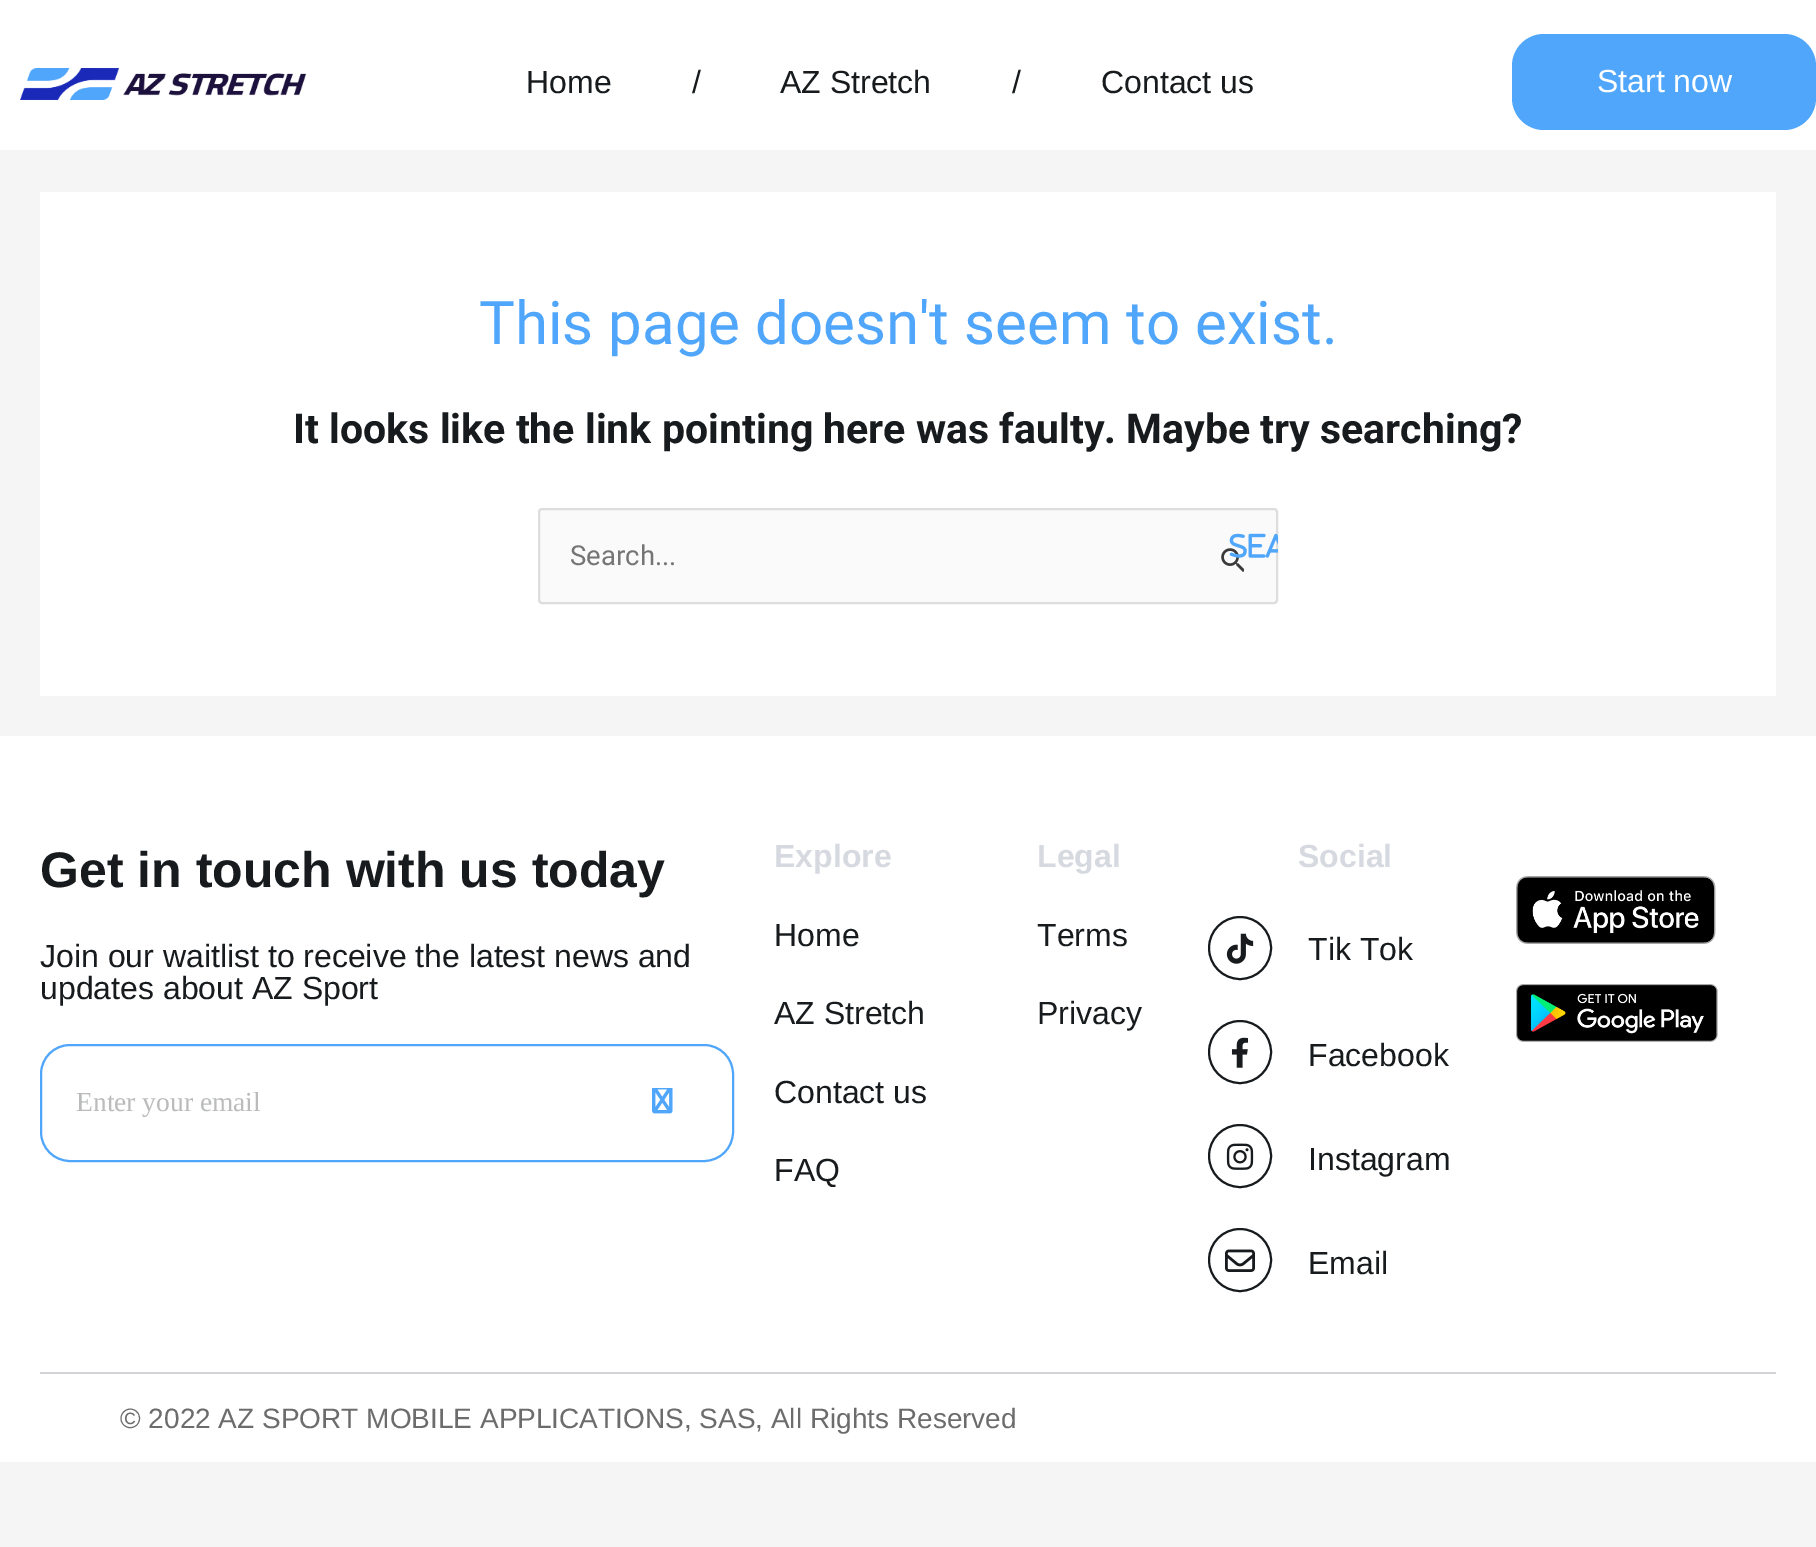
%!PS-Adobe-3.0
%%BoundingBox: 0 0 1816 1547
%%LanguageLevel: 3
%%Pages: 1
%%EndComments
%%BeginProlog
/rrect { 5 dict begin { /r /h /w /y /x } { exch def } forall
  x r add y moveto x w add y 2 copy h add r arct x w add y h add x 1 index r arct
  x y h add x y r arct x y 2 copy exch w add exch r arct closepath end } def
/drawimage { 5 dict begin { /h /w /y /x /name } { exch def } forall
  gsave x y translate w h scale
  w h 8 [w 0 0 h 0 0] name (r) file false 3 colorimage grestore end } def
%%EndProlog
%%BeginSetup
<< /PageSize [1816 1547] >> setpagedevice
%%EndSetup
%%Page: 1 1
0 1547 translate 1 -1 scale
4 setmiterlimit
0.961 setgray
0 0 1816 1547 rectfill
1 setgray
0 0 1816 150 rectfill
(images/1.raw) 20 68 286 32 drawimage
0.314 0.651 0.984 setrgbcolor
1512 34 304 96 32 rrect fill
1 setgray
40 192 1736 504 rectfill
0.98 setgray
539 509 738 94 3 rrect gsave fill grestore
0.867 setgray
2 setlinewidth
stroke
(images/2.raw) 1221 548 23 24 drawimage
(images/3.raw) 1229 533 49 25 drawimage
1 setgray
0 736 1816 726 rectfill
0.314 0.651 0.984 setrgbcolor
41 1045 692 116 29 rrect stroke
(images/4.raw) 652 1088 21 26 drawimage
0.094 0.106 0.114 setrgbcolor
newpath 1240 948 31 0 360 arc closepath stroke
(images/5.raw) 1226 933 28 31 drawimage
newpath 1240 1052 31 0 360 arc closepath stroke
(images/6.raw) 1231 1037 18 31 drawimage
newpath 1240 1156 31 0 360 arc closepath stroke
(images/7.raw) 1226 1143 28 27 drawimage
newpath 1240 1260 31 0 360 arc closepath stroke
(images/8.raw) 1225 1249 30 23 drawimage
(images/9.raw) 1516 876 200 68 drawimage
(images/10.raw) 1516 984 202 58 drawimage
0.824 0.831 0.847 setrgbcolor
40 1372 1736 2 rectfill
/LiberationSans-Regular [32 0 0 -32 0 0] selectfont
0.094 0.106 0.114 setrgbcolor
526 93 moveto (Home) show
692 93 moveto (/) show
780 93 moveto (AZ Stretch) show
1012 93 moveto (/) show
1101 93 moveto (Contact us) show
1 setgray
1597 92 moveto (Start now) show
/Roboto-Regular [60 0 0 -60 0 0] selectfont
0.314 0.651 0.984 setrgbcolor
479 344 moveto (This page doesn't seem to exist.) show
/Roboto-Bold [41.05 0 0 -41.05 0 0] selectfont
0.094 0.106 0.114 setrgbcolor
293 443 moveto (It looks like the link pointing here was faulty. Maybe try searching?) show
/Roboto-Regular [27.5 0 0 -27.5 0 0] selectfont
0.459 setgray
570 565 moveto (Search...) show
/LiberationSans-Bold [50 0 0 -50 0 0] selectfont
0.094 0.106 0.114 setrgbcolor
40 887 moveto (Get in touch with us today) show
/LiberationSans-Regular [32 0 0 -32 0 0] selectfont
40 967 moveto (Join our waitlist to receive the latest news and) show
40 999 moveto (updates about AZ Sport) show
/LiberationSerif-Regular [27.5 0 0 -27.5 0 0] selectfont
0.729 0.733 0.733 setrgbcolor
76 1111 moveto (Enter your email) show
/LiberationSans-Bold [32 0 0 -32 0 0] selectfont
0.839 0.851 0.878 setrgbcolor
774 867 moveto (Explore) show
/LiberationSans-Regular [32 0 0 -32 0 0] selectfont
0.094 0.106 0.114 setrgbcolor
774 946 moveto (Home) show
774 1024 moveto (AZ Stretch) show
774 1103 moveto (Contact us) show
774 1181 moveto (FAQ) show
/LiberationSans-Bold [32 0 0 -32 0 0] selectfont
0.839 0.851 0.878 setrgbcolor
1037 867 moveto (Legal) show
/LiberationSans-Regular [32 0 0 -32 0 0] selectfont
0.094 0.106 0.114 setrgbcolor
1037 946 moveto (Terms) show
1037 1024 moveto (Privacy) show
/LiberationSans-Bold [32 0 0 -32 0 0] selectfont
0.839 0.851 0.878 setrgbcolor
1298 867 moveto (Social) show
/LiberationSans-Regular [32 0 0 -32 0 0] selectfont
0.094 0.106 0.114 setrgbcolor
1308 960 moveto (Tik Tok) show
1308 1066 moveto (Facebook) show
1308 1170 moveto (Instagram) show
1308 1274 moveto (Email) show
/LiberationSans-Regular [28 0 0 -28 0 0] selectfont
0.424 setgray
120 1428 moveto (© 2022 AZ SPORT MOBILE APPLICATIONS, SAS, All Rights Reserved) show
showpage
%%EOF
